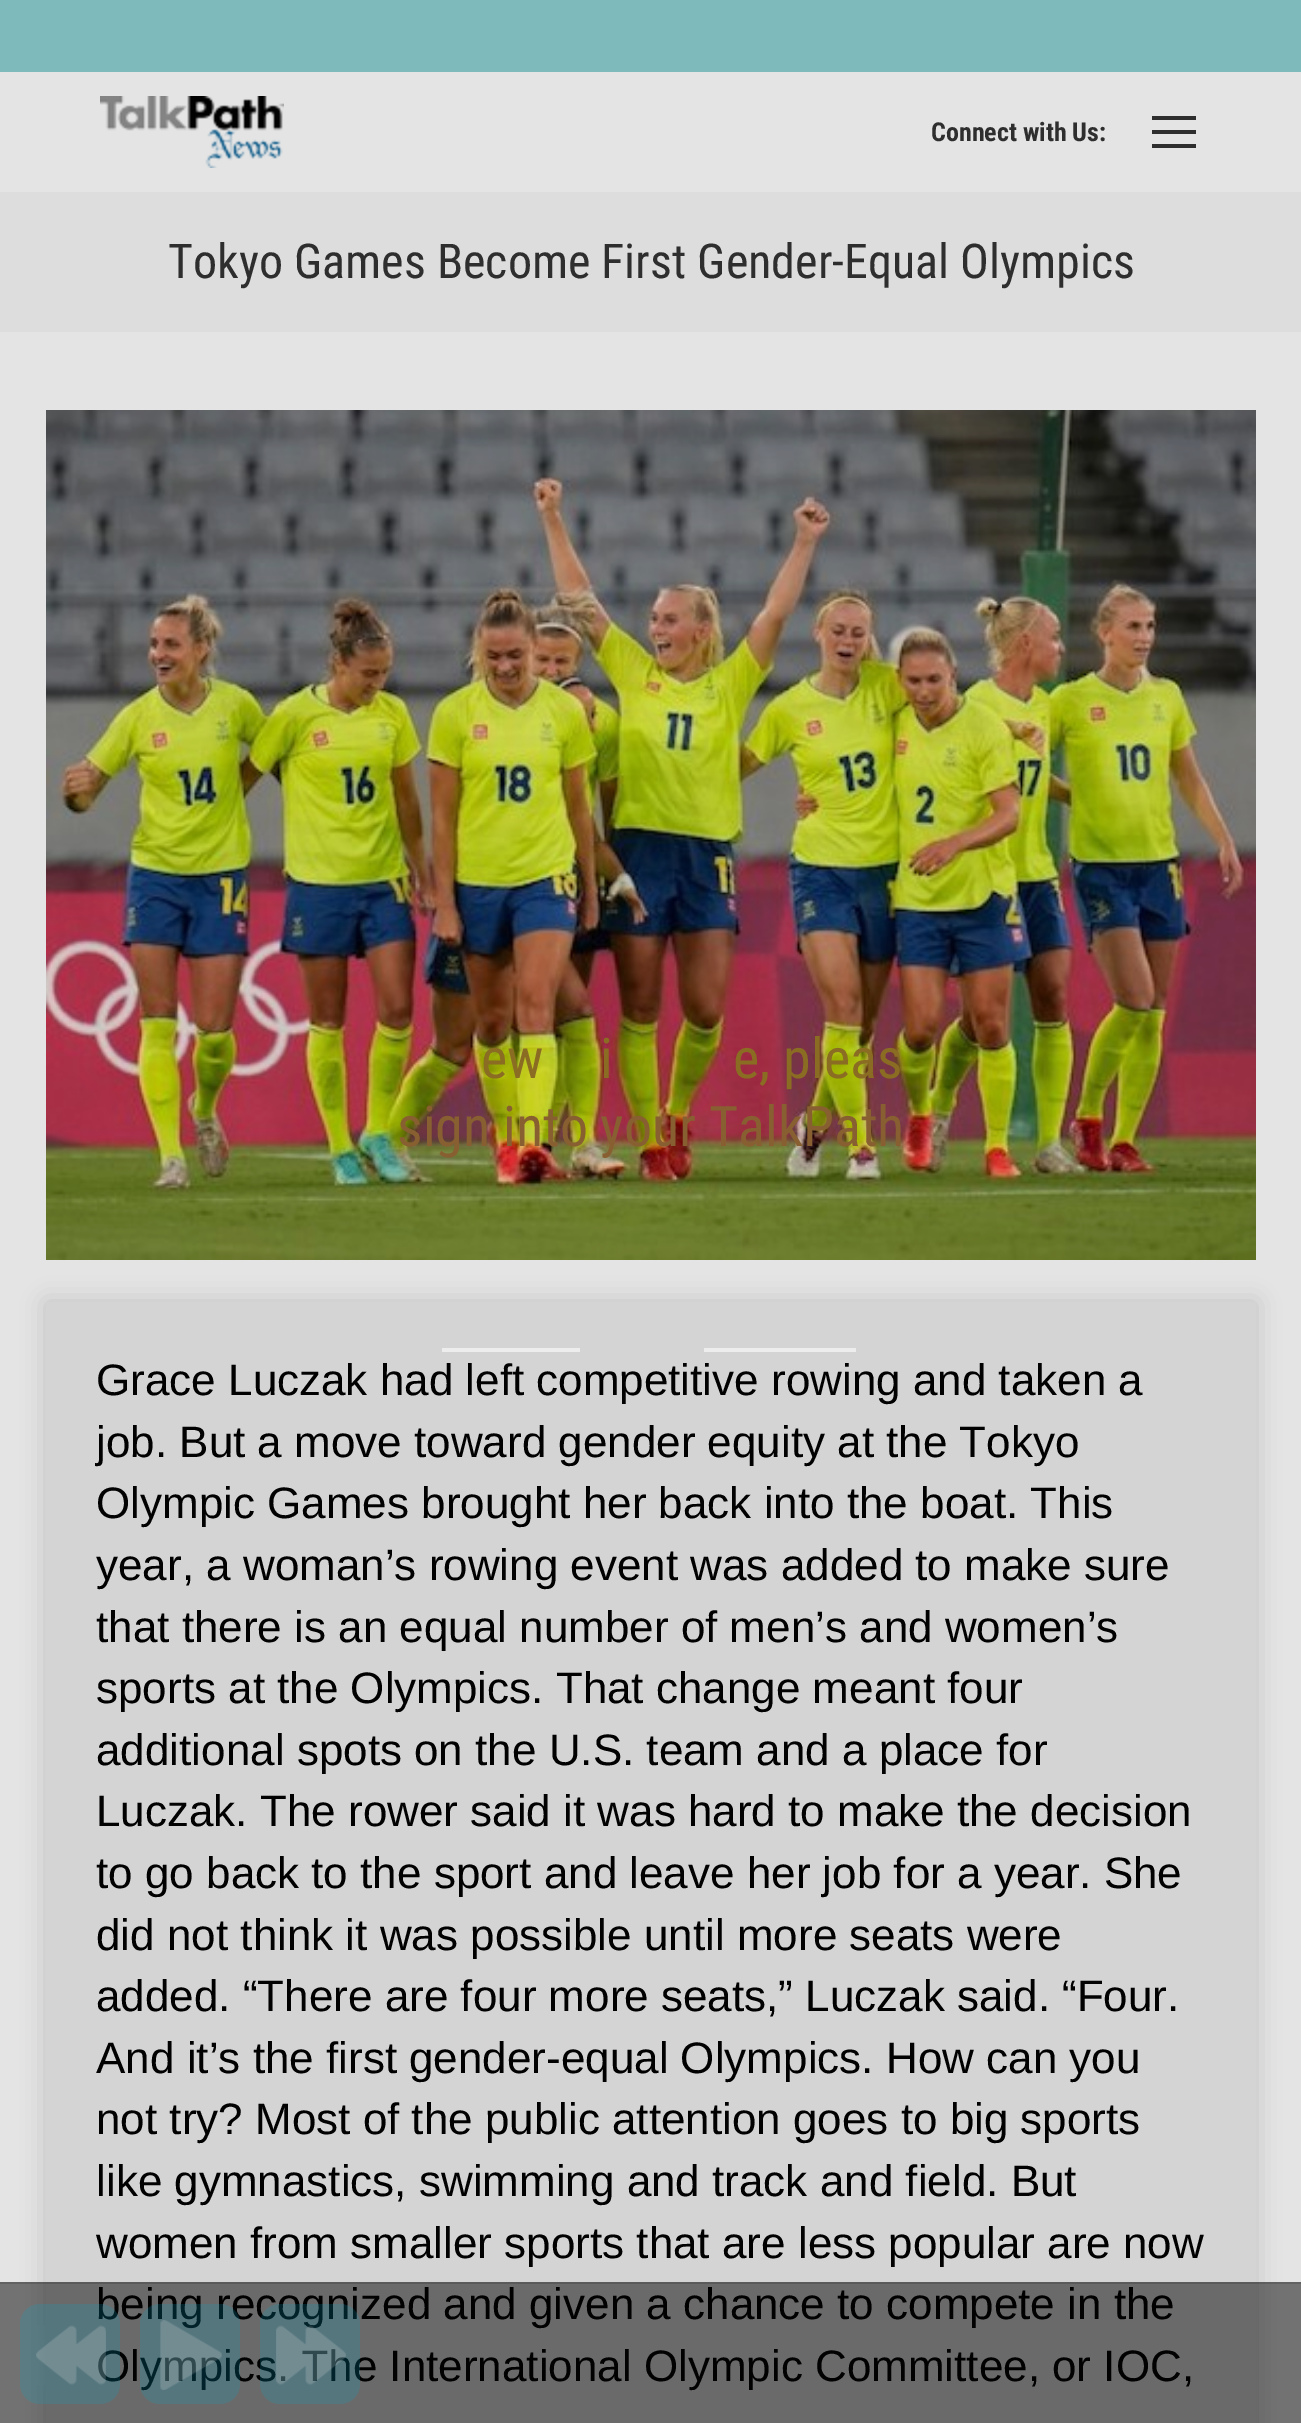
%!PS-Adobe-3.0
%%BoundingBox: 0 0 1301 2423
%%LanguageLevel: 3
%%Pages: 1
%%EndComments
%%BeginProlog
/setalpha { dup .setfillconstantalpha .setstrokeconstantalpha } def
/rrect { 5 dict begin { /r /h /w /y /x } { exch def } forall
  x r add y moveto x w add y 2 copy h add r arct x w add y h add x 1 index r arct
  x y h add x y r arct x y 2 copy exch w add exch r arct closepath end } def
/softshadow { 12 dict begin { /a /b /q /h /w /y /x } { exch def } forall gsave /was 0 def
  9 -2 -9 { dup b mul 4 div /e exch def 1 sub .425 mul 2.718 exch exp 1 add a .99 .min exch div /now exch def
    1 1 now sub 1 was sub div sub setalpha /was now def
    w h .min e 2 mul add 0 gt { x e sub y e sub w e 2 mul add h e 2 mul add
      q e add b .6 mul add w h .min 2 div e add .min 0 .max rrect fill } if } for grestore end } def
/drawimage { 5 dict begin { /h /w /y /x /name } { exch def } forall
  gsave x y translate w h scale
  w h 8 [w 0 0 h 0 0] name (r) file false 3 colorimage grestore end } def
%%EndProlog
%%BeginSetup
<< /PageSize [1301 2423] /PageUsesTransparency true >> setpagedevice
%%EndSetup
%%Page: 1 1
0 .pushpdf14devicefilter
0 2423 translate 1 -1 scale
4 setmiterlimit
0.894 setgray
0 0 1301 2423 rectfill
0.494 0.725 0.737 setrgbcolor
0 0 1301 72 rectfill
(images/1.raw) 100 96 184 72 drawimage
0.18 setgray
1152 116 44 4 rectfill
1152 130 44 4 rectfill
1152 144 44 4 rectfill
0.867 setgray
0 192 1301 140 rectfill
(images/2.raw) 46 410 1210 850 drawimage
0.004 setgray
46 1302 1210 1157 0 12 0.15 softshadow
0.831 setgray
46 1302 1210 1121 rectfill
0.929 setgray
442 1348 138 4 rectfill
704 1348 152 4 rectfill
/RobotoCondensed-Bold [26 0 0 -26 0 0] selectfont
0.18 setgray
931 141 moveto (Connect with Us:) show
/RobotoCondensed-Regular [48 0 0 -48 0 0] selectfont
168 278 moveto (Tokyo Games Become First Gender-Equal Olympics) show
/LiberationSans-Regular [44 0 0 -44 0 0] selectfont
0.004 setgray
96 1395 moveto (Grace Luczak had left competitive rowing and taken a) show
96 1457 moveto (job. But a move toward gender equity at the Tokyo) show
96 1518 moveto (Olympic Games brought her back into the boat. This) show
96 1580 moveto (year, a woman’s rowing event was added to make sure) show
96 1642 moveto (that there is an equal number of men’s and women’s) show
96 1703 moveto (sports at the Olympics. That change meant four) show
96 1765 moveto (additional spots on the U.S. team and a place for) show
96 1826 moveto (Luczak. The rower said it was hard to make the decision) show
96 1888 moveto (to go back to the sport and leave her job for a year. She) show
96 1950 moveto (did not think it was possible until more seats were) show
96 2011 moveto (added. “There are four more seats,” Luczak said. “Four.) show
96 2073 moveto (And it’s the first gender-equal Olympics. How can you) show
96 2134 moveto (not try? Most of the public attention goes to big sports) show
96 2196 moveto (like gymnastics, swimming and track and field. But) show
96 2258 moveto (women from smaller sports that are less popular are now) show
96 2319 moveto (being recognized and given a chance to compete in the) show
96 2381 moveto (Olympics. The International Olympic Committee, or IOC,) show
0.5 setalpha
0 2282 1301 141 rectfill
0.15 setalpha
0 2282 1301 2 rectfill
0.2 setalpha
0.012 0.651 0.796 setrgbcolor
20 2304 100 100 20 rrect fill
1 setalpha
(images/3.raw) 36 2325 70 60 drawimage
0.2 setalpha
140 2304 100 100 20 rrect fill
1 setalpha
(images/4.raw) 160 2320 62 70 drawimage
0.2 setalpha
260 2304 100 100 20 rrect fill
1 setalpha
(images/5.raw) 276 2325 70 60 drawimage
/RobotoCondensed-Regular [56 0 0 -56 0 0] selectfont
0.541 0.427 0.133 setrgbcolor
481 1078 moveto (ew) show
600 1078 moveto (i) show
733 1078 moveto (e, pleas) show
0.533 0.373 0.192 setrgbcolor
397 1146 moveto (sign into your TalkPath) show
.poppdf14devicefilter showpage
%%EOF
